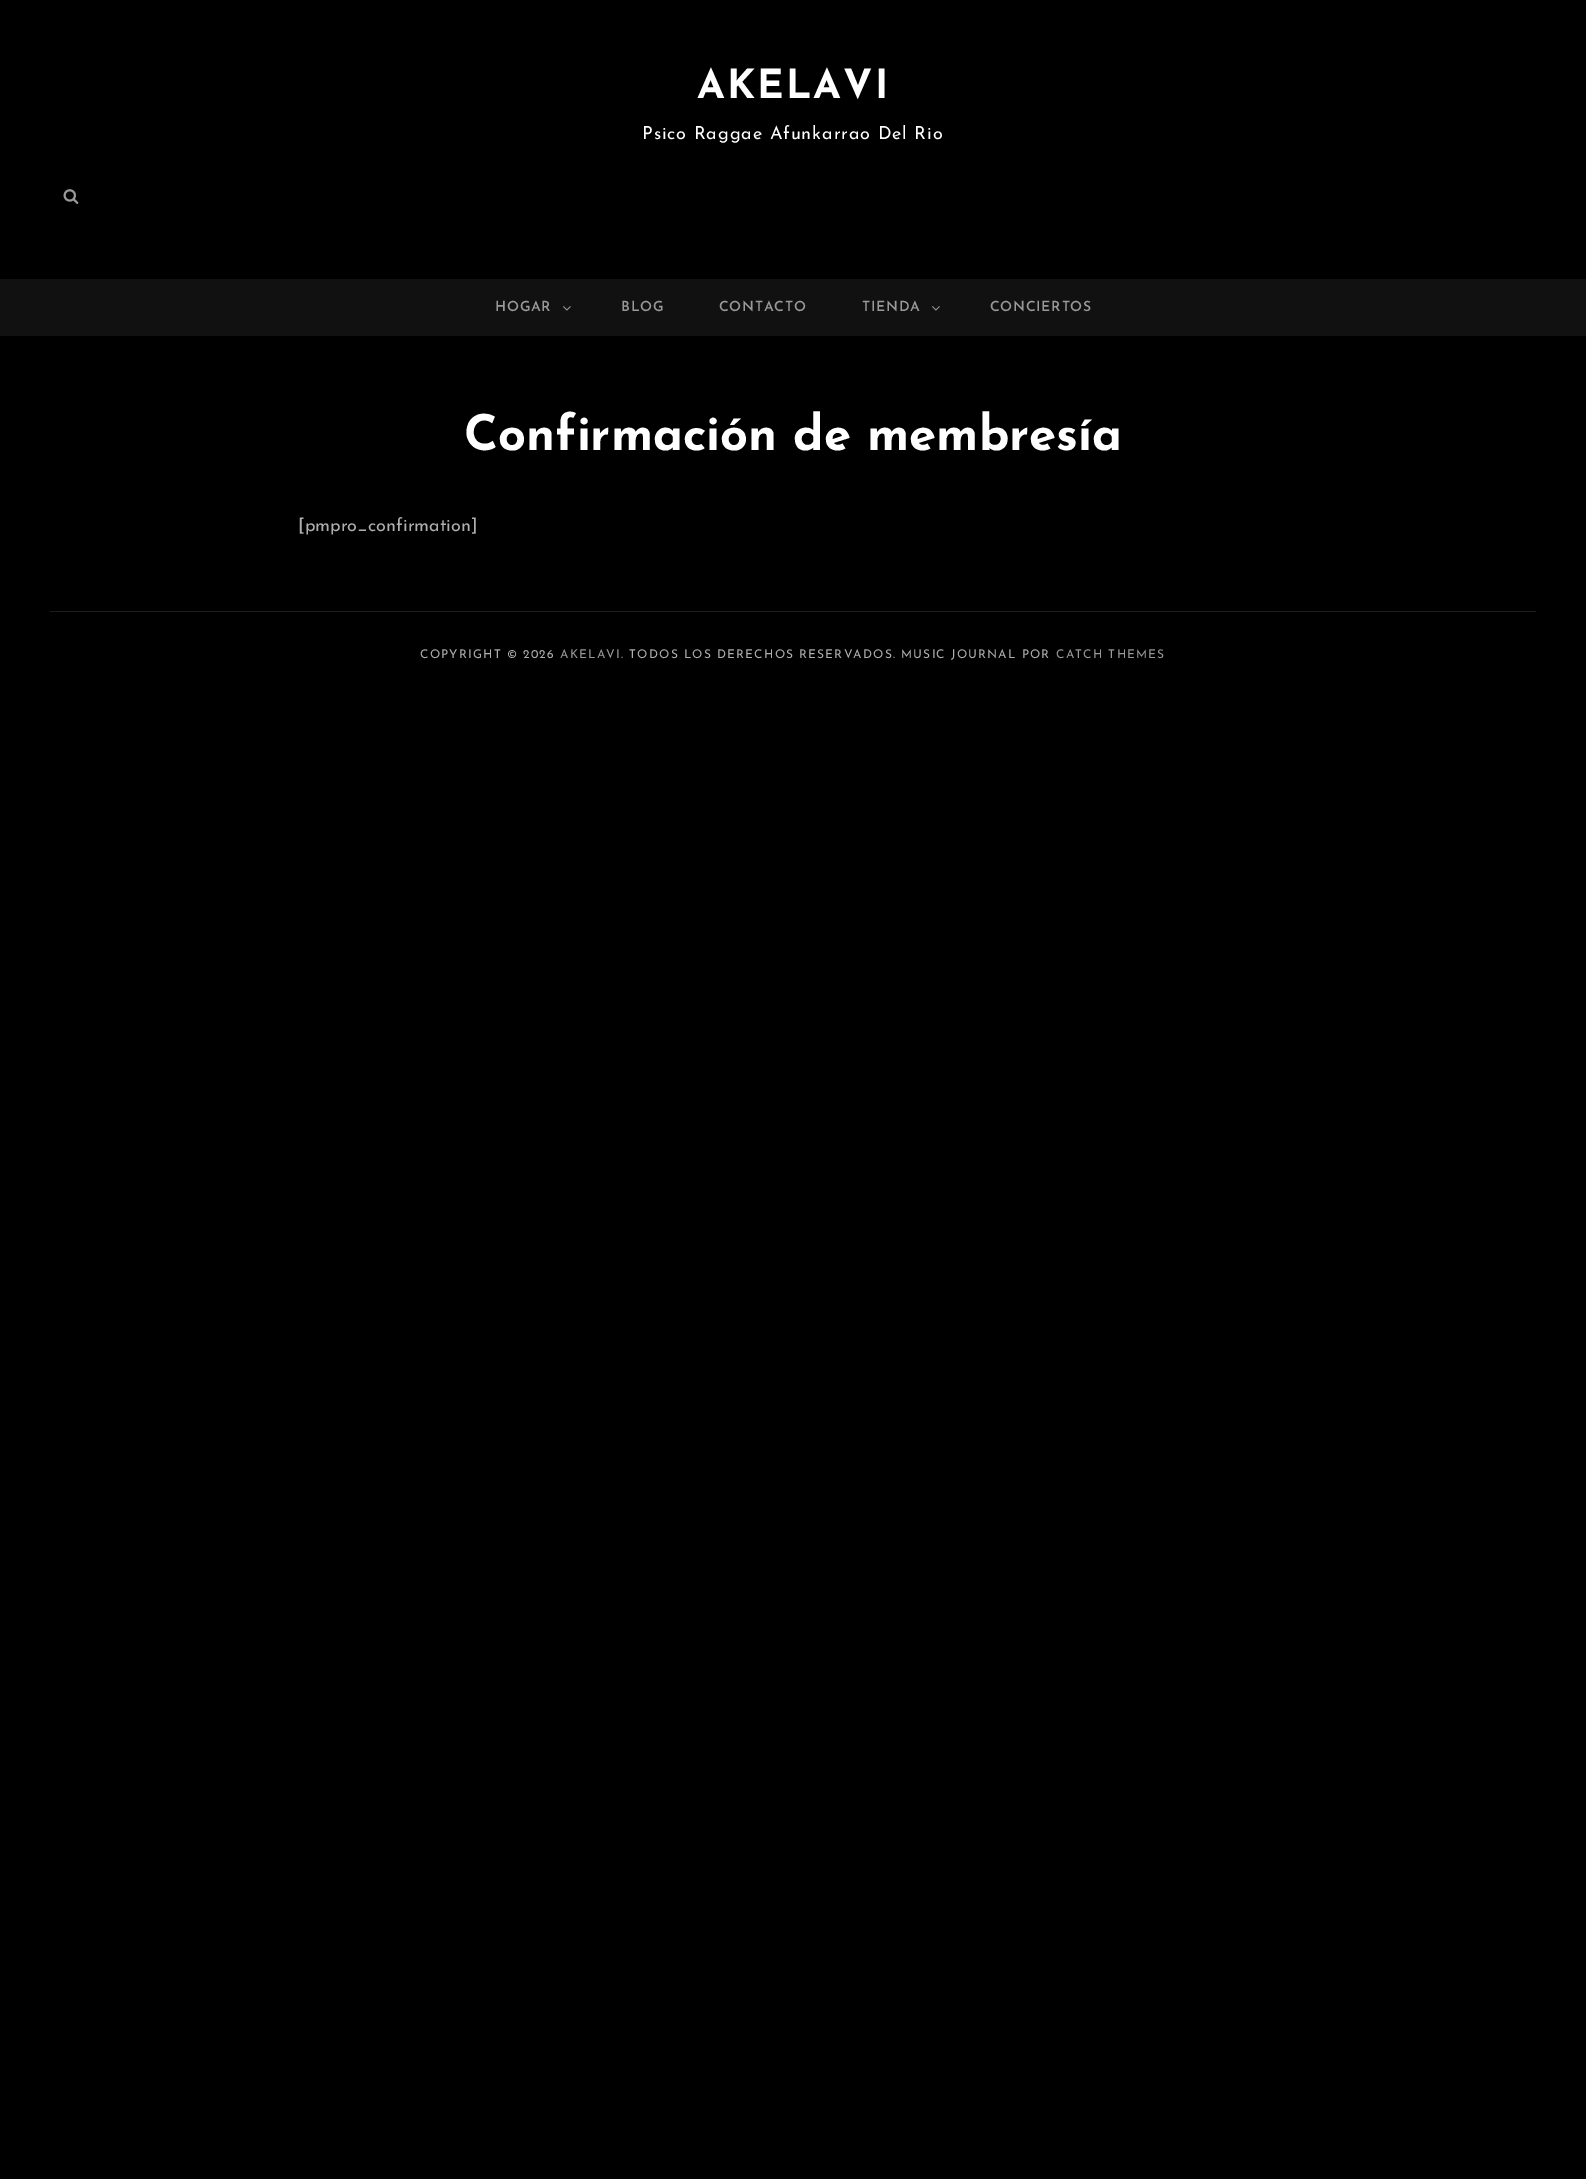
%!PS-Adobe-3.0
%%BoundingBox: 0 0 1586 2179
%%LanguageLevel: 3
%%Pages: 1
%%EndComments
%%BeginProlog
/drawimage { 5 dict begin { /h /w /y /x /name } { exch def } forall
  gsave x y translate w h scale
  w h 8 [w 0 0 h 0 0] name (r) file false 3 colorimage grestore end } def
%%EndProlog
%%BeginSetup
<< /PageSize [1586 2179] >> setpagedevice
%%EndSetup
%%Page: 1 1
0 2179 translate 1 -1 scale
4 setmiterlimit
0 setgray
0 0 1586 2179 rectfill
(images/1.raw) 63 189 16 15 drawimage
0.067 setgray
0 279 1586 57 rectfill
(images/2.raw) 563 306 8 5 drawimage
(images/2.raw) 932 306 8 5 drawimage
0.11 setgray
50 611 1486 1 rectfill
/JosefinSans-Bold [40 0 0 -40 0 0] selectfont
1 setgray
697 98 moveto 2 0 (AKELAVI) ashow
/JosefinSans-Regular [18 0 0 -18 0 0] selectfont
642 139 moveto 0.9 0 (Psico Raggae Afunkarrao Del Rio) ashow
/JosefinSans-SemiBold [14 0 0 -14 0 0] selectfont
0.6 setgray
495 311 moveto 0.75 0 (HOGAR) ashow
621 311 moveto 0.75 0 (BLOG) ashow
719 311 moveto 0.75 0 (CONTACTO) ashow
862 311 moveto 0.75 0 (TIENDA) ashow
990 311 moveto 0.75 0 (CONCIERTOS) ashow
/JosefinSans-Bold [49 0 0 -49 0 0] selectfont
1 setgray
464 450 moveto (Confirmación de membresía) show
/JosefinSans-Regular [18 0 0 -18 0 0] selectfont
0.686 setgray
298 531 moveto ([pmpro_confirmation]) show
/JosefinSans-Regular [12 0 0 -12 0 0] selectfont
420 658 moveto 1.2 0 (COPYRIGHT © 2026) ashow
0.6 setgray
560 658 moveto 1.2 0 (AKELAVI) ashow
0.686 setgray
621 658 moveto 1.2 0 (. TODOS LOS DERECHOS RESERVADOS. MUSIC JOURNAL POR) ashow
0.6 setgray
1056 658 moveto 1.2 0 (CATCH THEMES) ashow
showpage
%%EOF
